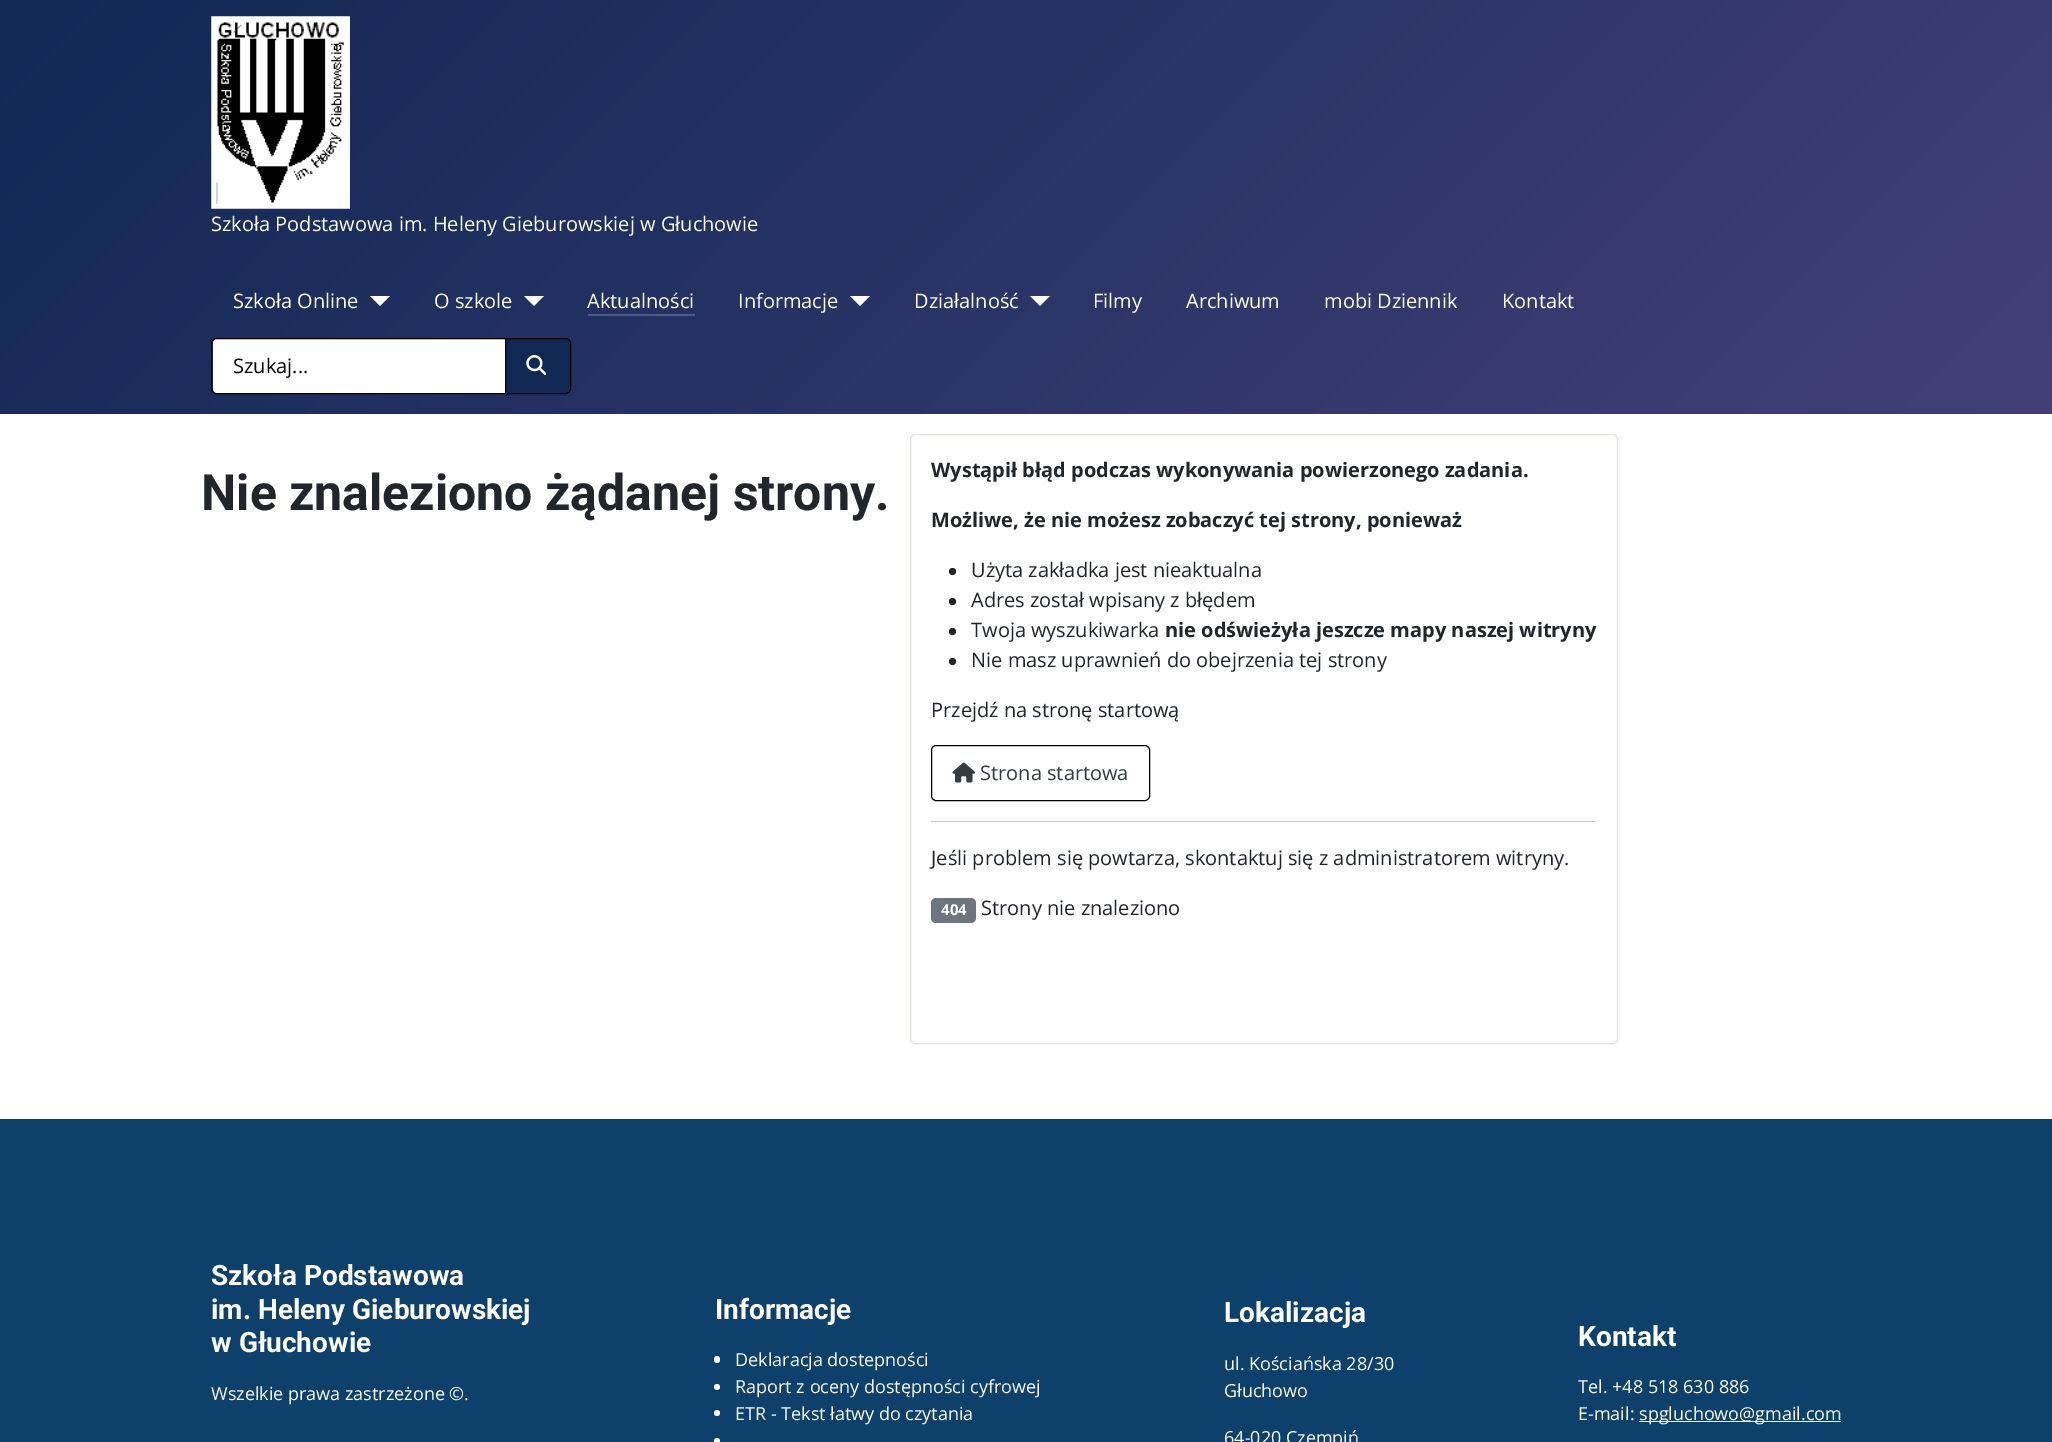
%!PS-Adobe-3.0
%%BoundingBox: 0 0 2052 1442
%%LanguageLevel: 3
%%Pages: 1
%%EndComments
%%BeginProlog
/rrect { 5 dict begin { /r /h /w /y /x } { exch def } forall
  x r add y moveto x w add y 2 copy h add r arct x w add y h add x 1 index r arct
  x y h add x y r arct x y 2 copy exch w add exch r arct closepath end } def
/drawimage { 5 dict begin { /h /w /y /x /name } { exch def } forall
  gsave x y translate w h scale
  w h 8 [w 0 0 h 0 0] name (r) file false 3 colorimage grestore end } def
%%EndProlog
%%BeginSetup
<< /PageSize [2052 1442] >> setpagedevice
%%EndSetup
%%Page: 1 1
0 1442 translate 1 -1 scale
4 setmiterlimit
1 setgray
0 0 2052 1442 rectfill
gsave newpath 0 0 moveto 2052 0 lineto 2052 414 lineto 0 414 lineto closepath clip newpath
<< /ShadingType 2 /ColorSpace /DeviceRGB /Coords [410 -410 1643 823] /Extend [true true] /Function << /FunctionType 2 /Domain [0 1] /C0 [0.067 0.157 0.333] /C1 [0.259 0.251 0.467] /N 1 >> >> shfill grestore
(images/1.raw) 211 16 139 193 drawimage
newpath 370 296 moveto 390 296 lineto 380 306 lineto closepath fill
newpath 524 296 moveto 544 296 lineto 534 306 lineto closepath fill
0.314 0.353 0.51 setrgbcolor
588 314 107 2 rectfill
1 setgray
newpath 850 296 moveto 870 296 lineto 860 306 lineto closepath fill
newpath 1030 296 moveto 1050 296 lineto 1040 306 lineto closepath fill
newpath 217 339 moveto 505 339 lineto 505 393 lineto 217 393 lineto 215 393 213 391 213 389 curveto 213 343 lineto 213 341 215 339 217 339 curveto closepath fill
0 setgray
newpath 216 338.5 moveto 505.5 338.5 lineto 505.5 393.5 lineto 216 393.5 lineto 213.5 393.5 211.5 391.5 211.5 389 curveto 211.5 343 lineto 211.5 340.5 213.5 338.5 216 338.5 curveto closepath stroke
0.067 0.157 0.333 setrgbcolor
newpath 505.5 338.5 moveto 566 338.5 lineto 568.5 338.5 570.5 340.5 570.5 343 curveto 570.5 389 lineto 570.5 391.5 568.5 393.5 566 393.5 curveto 505.5 393.5 lineto closepath gsave fill grestore
0 setgray
stroke
(images/2.raw) 526 355 21 20 drawimage
0.875 0.89 0.906 setrgbcolor
910.5 434.5 707 609 4.5 rrect stroke
0.133 0.149 0.165 setrgbcolor
newpath 952.5 571.5 3.5 0 360 arc closepath fill
newpath 952.5 601.5 3.5 0 360 arc closepath fill
newpath 952.5 631.5 3.5 0 360 arc closepath fill
newpath 952.5 661.5 3.5 0 360 arc closepath fill
0 setgray
931.5 745.5 218 55 4.5 rrect stroke
(images/3.raw) 952 762 23 21 drawimage
0.784 0.788 0.792 setrgbcolor
931 821 665 1 rectfill
0.427 0.459 0.494 setrgbcolor
931 898 45 25 5 rrect fill
0.051 0.255 0.42 setrgbcolor
0 1119 2052 323 rectfill
1 setgray
714 1356 6 7 3 rrect fill
newpath 717 1387 3 0 360 arc closepath fill
newpath 717 1413 3 0 360 arc closepath fill
newpath 717 1441 3 0 360 arc closepath fill
1639 1421 202 1 rectfill
/OpenSans-Regular [20 0 0 -20 0 0] selectfont
211 231 moveto (Szkoła Podstawowa im. Heleny Gieburowskiej w Głuchowie) show
233 308 moveto (Szkoła Online) show
434 308 moveto (O szkole) show
587 308 moveto (Aktualności) show
738 308 moveto (Informacje) show
914 308 moveto (Działalność) show
1093 308 moveto (Filmy) show
1186 308 moveto (Archiwum) show
1324 308 moveto (mobi Dziennik) show
1502 308 moveto (Kontakt) show
0 setgray
233 373 moveto (Szukaj...) show
/Roboto-Bold [50 0 0 -50 0 0] selectfont
0.133 0.149 0.165 setrgbcolor
201 510 moveto (Nie znaleziono żądanej strony.) show
/OpenSans-Bold [20 0 0 -20 0 0] selectfont
931 477 moveto (Wystąpił błąd podczas wykonywania powierzonego zadania.) show
931 527 moveto (Możliwe, że nie możesz zobaczyć tej strony, ponieważ) show
/OpenSans-Regular [20 0 0 -20 0 0] selectfont
971 577 moveto (Użyta zakładka jest nieaktualna) show
971 607 moveto (Adres został wpisany z błędem) show
971 637 moveto (Twoja wyszukiwarka) show
/OpenSans-Bold [20 0 0 -20 0 0] selectfont
1165 637 moveto (nie odświeżyła jeszcze mapy naszej witryny) show
/OpenSans-Regular [20 0 0 -20 0 0] selectfont
971 667 moveto (Nie masz uprawnień do obejrzenia tej strony) show
931 717 moveto (Przejdź na stronę startową) show
0.208 0.231 0.255 setrgbcolor
980 780 moveto (Strona startowa) show
0.133 0.149 0.165 setrgbcolor
931 865 moveto (Jeśli problem się powtarza, skontaktuj się z administratorem witryny.) show
/OpenSans-Bold [15 0 0 -15 0 0] selectfont
1 setgray
941 915 moveto (404) show
/OpenSans-Regular [20 0 0 -20 0 0] selectfont
0.133 0.149 0.165 setrgbcolor
981 915 moveto (Strony nie znaleziono) show
/Roboto-Bold [28 0 0 -28 0 0] selectfont
1 setgray
211 1285 moveto (Szkoła Podstawowa) show
211 1319 moveto (im. Heleny Gieburowskiej) show
211 1352 moveto (w Głuchowie) show
/OpenSans-Regular [18 0 0 -18 0 0] selectfont
211 1400 moveto (Wszelkie prawa zastrzeżone ©.) show
/Roboto-Bold [28 0 0 -28 0 0] selectfont
715 1319 moveto (Informacje) show
/OpenSans-Regular [18 0 0 -18 0 0] selectfont
735 1366 moveto (Deklaracja dostepności) show
735 1393 moveto (Raport z oceny dostępności cyfrowej) show
735 1420 moveto (ETR - Tekst łatwy do czytania) show
/Roboto-Bold [28 0 0 -28 0 0] selectfont
1224 1322 moveto (Lokalizacja) show
/OpenSans-Regular [18 0 0 -18 0 0] selectfont
1224 1370 moveto (ul. Kościańska 28/30) show
1224 1397 moveto (Głuchowo) show
1224 1444 moveto (64-020 Czempiń) show
/Roboto-Bold [28 0 0 -28 0 0] selectfont
1578 1346 moveto (Kontakt) show
/OpenSans-Regular [18 0 0 -18 0 0] selectfont
1578 1393 moveto (Tel. +48 518 630 886) show
1578 1420 moveto (E-mail:) show
1639 1420 moveto (spgluchowo@gmail.com) show
showpage
%%EOF
